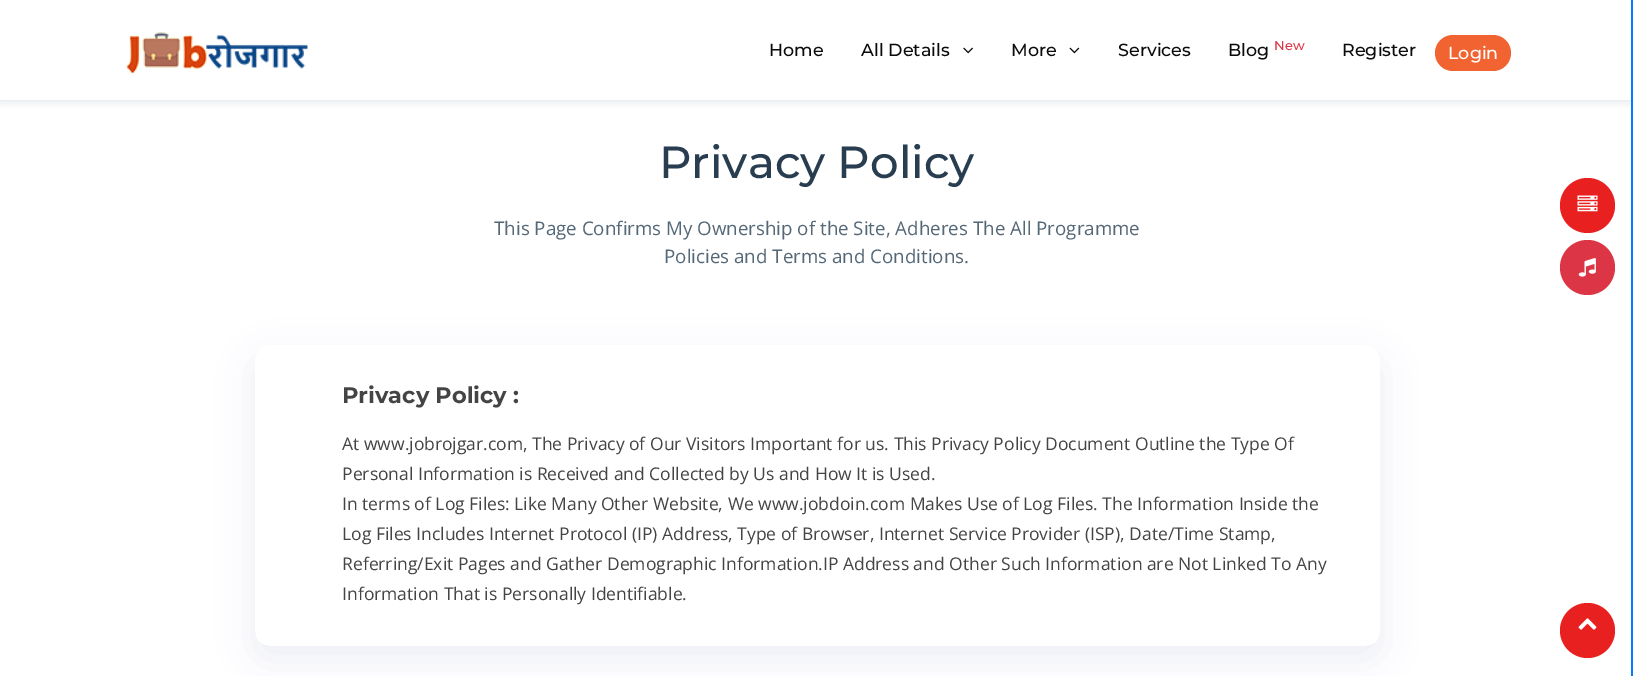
%!PS-Adobe-3.0
%%BoundingBox: 0 0 1633 676
%%LanguageLevel: 3
%%Pages: 1
%%EndComments
%%BeginProlog
/setalpha { dup .setfillconstantalpha .setstrokeconstantalpha } def
/rrect { 5 dict begin { /r /h /w /y /x } { exch def } forall
  x r add y moveto x w add y 2 copy h add r arct x w add y h add x 1 index r arct
  x y h add x y r arct x y 2 copy exch w add exch r arct closepath end } def
/softshadow { 12 dict begin { /a /b /q /h /w /y /x } { exch def } forall gsave /was 0 def
  9 -2 -9 { dup b mul 4 div /e exch def 1 sub .425 mul 2.718 exch exp 1 add a .99 .min exch div /now exch def
    1 1 now sub 1 was sub div sub setalpha /was now def
    w h .min e 2 mul add 0 gt { x e sub y e sub w e 2 mul add h e 2 mul add
      q e add b .6 mul add w h .min 2 div e add .min 0 .max rrect fill } if } for grestore end } def
/drawimage { 5 dict begin { /h /w /y /x /name } { exch def } forall
  gsave x y translate w h scale
  w h 8 [w 0 0 h 0 0] name (r) file false 3 colorimage grestore end } def
%%EndProlog
%%BeginSetup
<< /PageSize [1633 676] /PageUsesTransparency true >> setpagedevice
%%EndSetup
%%Page: 1 1
0 .pushpdf14devicefilter
0 676 translate 1 -1 scale
4 setmiterlimit
1 setgray
0 0 1633 676 rectfill
gsave
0 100 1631 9 rectclip
0.498 0.537 0.631 setrgbcolor
0 0 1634 100 0 6 0.3 softshadow
grestore
(images/1.raw) 126 31 182 43 drawimage
(images/2.raw) 963 47 10 7 drawimage
(images/3.raw) 1069 47 11 7 drawimage
0.945 0.388 0.188 setrgbcolor
1435 35 76 36 18 rrect fill
0 0.482 1 setrgbcolor
1631 0 2 676 rectfill
gsave
newpath 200 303 moveto 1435 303 lineto 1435 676 lineto 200 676 lineto closepath 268 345 moveto 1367 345 lineto 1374 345 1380 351 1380 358 curveto 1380 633 lineto 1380 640 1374 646 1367 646 curveto 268 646 lineto 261 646 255 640 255 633 curveto 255 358 lineto 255 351 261 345 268 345 curveto closepath eoclip newpath
0.267 0.345 0.565 setrgbcolor
255 358 1125 301 13 18 0.1 softshadow
grestore
0.91 0.125 0.125 setrgbcolor
newpath 1587.5 205.5 27.5 0 360 arc closepath fill
(images/4.raw) 1577 195 21 17 drawimage
0.863 0.208 0.271 setrgbcolor
newpath 1587.5 267.5 27.5 0 360 arc closepath fill
(images/5.raw) 1578 258 18 19 drawimage
0.91 0.125 0.125 setrgbcolor
newpath 1587.5 630.5 27.5 0 360 arc closepath fill
(images/6.raw) 1578 618 19 12 drawimage
/Montserrat-Medium [17.5 0 0 -17.5 0 0] selectfont
0.047 0.043 0.043 setrgbcolor
769 56 moveto (Home) show
861 56 moveto (All Details) show
1011 56 moveto (More) show
1118 56 moveto (Services) show
1228 56 moveto (Blog) show
/Montserrat-Medium [13 0 0 -13 0 0] selectfont
0.863 0.208 0.271 setrgbcolor
1274 50 moveto (New) show
/Montserrat-Medium [17.5 0 0 -17.5 0 0] selectfont
0.047 0.043 0.043 setrgbcolor
1342 56 moveto (Register) show
1 setgray
1448 59 moveto (Login) show
/Montserrat-Medium [45 0 0 -45 0 0] selectfont
0.157 0.239 0.314 setrgbcolor
659 178 moveto (Privacy Policy) show
/OpenSans-Regular [18.75 0 0 -18.75 0 0] selectfont
0.333 0.408 0.467 setrgbcolor
494 235 moveto (This Page Confirms My Ownership of the Site, Adheres The All Programme) show
664 263 moveto (Policies and Terms and Conditions.) show
/Montserrat-Bold [22.5 0 0 -22.5 0 0] selectfont
0.267 setgray
342 403 moveto (Privacy Policy :) show
/OpenSans-Regular [17.5 0 0 -17.5 0 0] selectfont
342 450 moveto (At www.jobrojgar.com, The Privacy of Our Visitors Important for us. This Privacy Policy Document Outline the Type Of) show
342 480 moveto (Personal Information is Received and Collected by Us and How It is Used.) show
342 510 moveto (In terms of Log Files: Like Many Other Website, We www.jobdoin.com Makes Use of Log Files. The Information Inside the) show
342 540 moveto (Log Files Includes Internet Protocol \(IP\) Address, Type of Browser, Internet Service Provider \(ISP\), Date/Time Stamp,) show
342 570 moveto (Referring/Exit Pages and Gather Demographic Information.IP Address and Other Such Information are Not Linked To Any) show
342 600 moveto (Information That is Personally Identifiable.) show
.poppdf14devicefilter showpage
%%EOF
